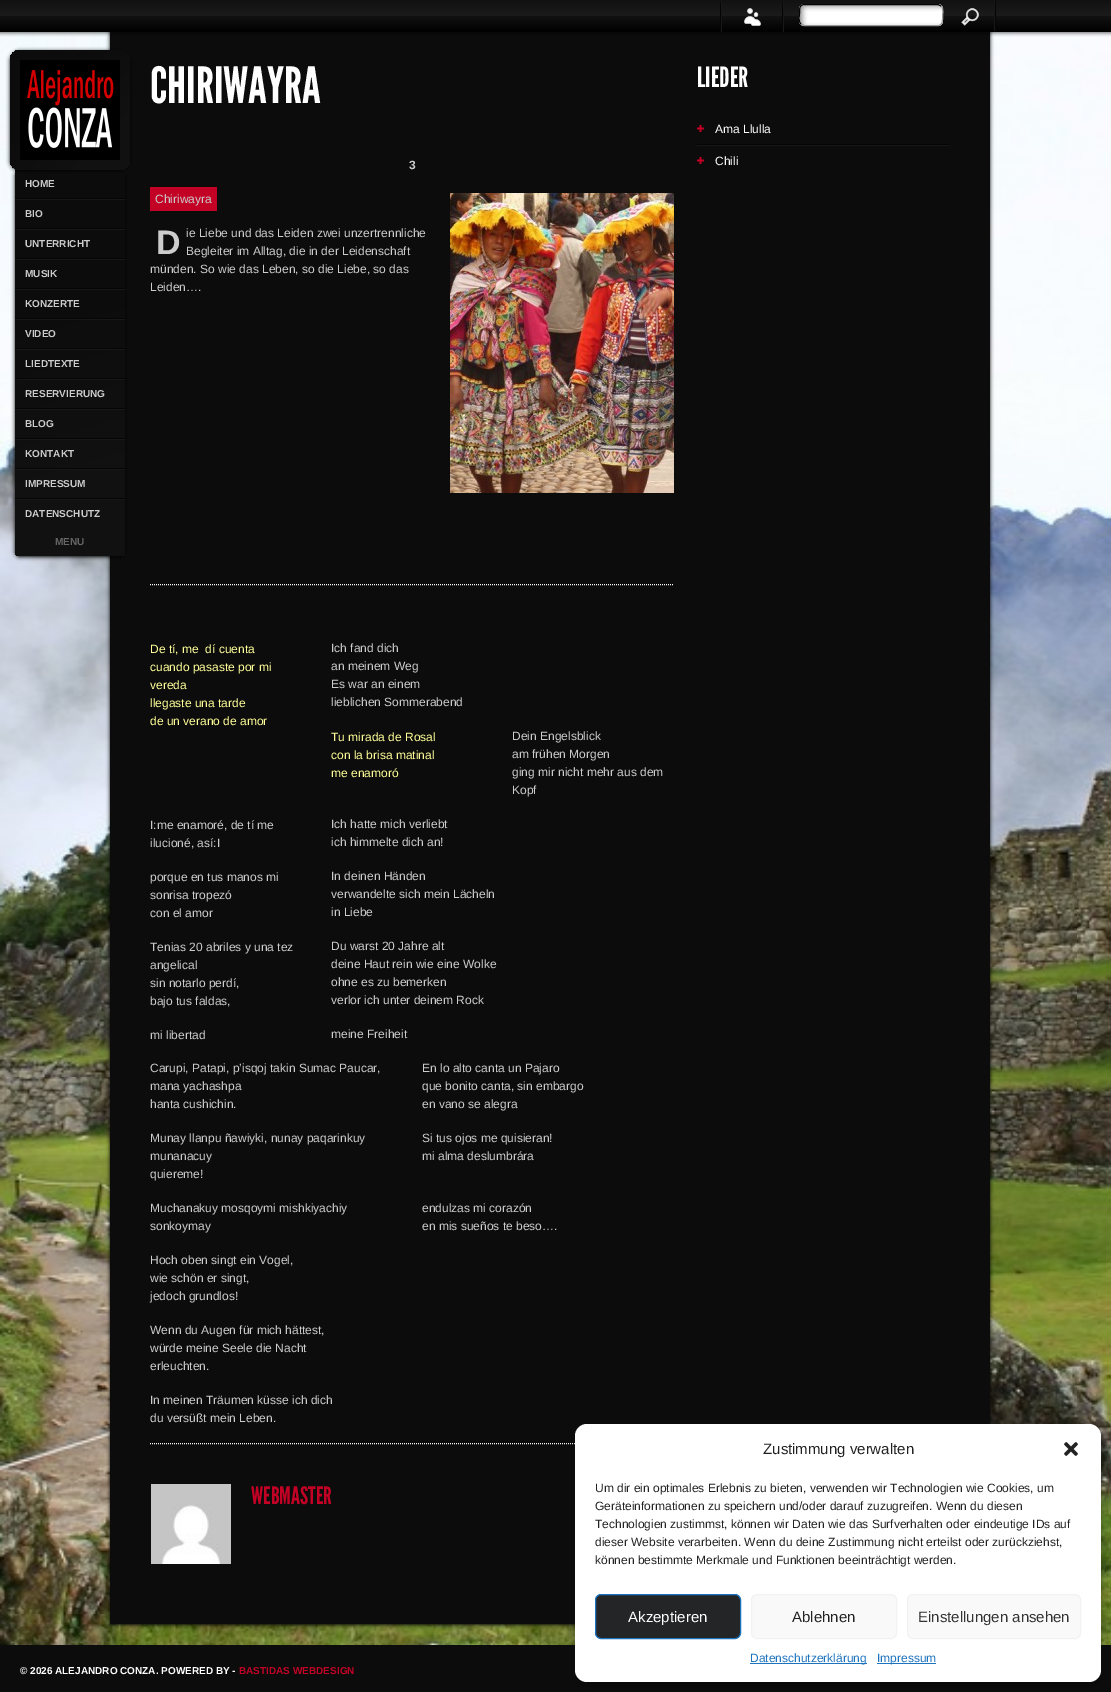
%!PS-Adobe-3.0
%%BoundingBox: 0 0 1111 1692
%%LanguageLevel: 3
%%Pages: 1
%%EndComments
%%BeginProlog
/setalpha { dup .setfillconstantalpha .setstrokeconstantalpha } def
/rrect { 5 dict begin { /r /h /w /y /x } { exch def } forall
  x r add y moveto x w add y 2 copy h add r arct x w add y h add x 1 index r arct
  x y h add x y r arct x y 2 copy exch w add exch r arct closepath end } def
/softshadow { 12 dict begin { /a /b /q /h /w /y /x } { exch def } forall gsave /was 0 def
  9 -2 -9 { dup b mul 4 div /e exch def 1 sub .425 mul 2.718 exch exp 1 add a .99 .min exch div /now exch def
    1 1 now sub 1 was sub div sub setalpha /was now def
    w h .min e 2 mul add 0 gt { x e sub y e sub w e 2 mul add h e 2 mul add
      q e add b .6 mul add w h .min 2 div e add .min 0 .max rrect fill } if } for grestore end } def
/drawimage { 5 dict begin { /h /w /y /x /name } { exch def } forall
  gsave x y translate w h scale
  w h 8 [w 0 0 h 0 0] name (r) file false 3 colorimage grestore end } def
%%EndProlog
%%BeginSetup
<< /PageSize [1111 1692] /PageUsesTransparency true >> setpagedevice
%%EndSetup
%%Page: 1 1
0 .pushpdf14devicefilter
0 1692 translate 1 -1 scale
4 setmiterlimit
1 setgray
0 0 1111 1692 rectfill
(images/1.raw) 0 32 1111 1613 drawimage
0 setgray
110 27 880 1598 0 2 1 softshadow
0.047 setgray
110 32 880 1592 rectfill
(images/2.raw) 0 0 1111 37 drawimage
(images/3.raw) 720 2 64 30 drawimage
0.02 setgray
995 1 1 31 rectfill
1 setgray
799 4 144 22 5 rrect fill
(images/4.raw) 800 5 143 21 drawimage
0.6 setgray
newpath 941 6 moveto 944 8.5 942.5 14 942.5 17 curveto 942.5 20.5 943 25.5 938 25.5 curveto 804 25.5 lineto 801 24 lineto stroke
gsave
799 1 196 31 rectclip
0.02 setgray
newpath 801 24 moveto 798 21.5 799.5 16 799.5 13 curveto 799.5 9.5 799 4.5 804 4.5 curveto 938 4.5 lineto 941 6 lineto stroke
grestore
(images/5.raw) 961 8 18 18 drawimage
0.094 setgray
994 1 1 30 rectfill
0 setgray
15 171 110 386 5 2 1 softshadow
gsave newpath 15 170 moveto 125 170 lineto 125 551 lineto 125 554 123 556 120 556 curveto 20 556 lineto 17 556 15 554 15 551 curveto closepath clip newpath
<< /ShadingType 2 /ColorSpace /DeviceRGB /Coords [125 556 15 170] /Extend [true true] /Function << /FunctionType 3 /Domain [0 1] /Functions [<< /FunctionType 2 /Domain [0 1] /C0 [0.067 0.067 0.067] /C1 [0.067 0.067 0.067] /N 1 >> << /FunctionType 2 /Domain [0 1] /C0 [0.067 0.067 0.067] /C1 [0.047 0.047 0.047] /N 1 >> << /FunctionType 2 /Domain [0 1] /C0 [0.047 0.047 0.047] /C1 [0.047 0.047 0.047] /N 1 >>] /Bounds [0.23 0.62] /Encode [0 1 0 1 0 1] >> >> shfill grestore
10 51 120 120 10 2 1 softshadow
gsave 10 50 120 120 10 rrect clip newpath
<< /ShadingType 2 /ColorSpace /DeviceRGB /Coords [130 170 10 50] /Extend [true true] /Function << /FunctionType 3 /Domain [0 1] /Functions [<< /FunctionType 2 /Domain [0 1] /C0 [0.067 0.067 0.067] /C1 [0.067 0.067 0.067] /N 1 >> << /FunctionType 2 /Domain [0 1] /C0 [0.067 0.067 0.067] /C1 [0.047 0.047 0.047] /N 1 >> << /FunctionType 2 /Domain [0 1] /C0 [0.047 0.047 0.047] /C1 [0.047 0.047 0.047] /N 1 >>] /Bounds [0.23 0.62] /Encode [0 1 0 1 0 1] >> >> shfill grestore
(images/6.raw) 20 60 100 100 drawimage
0.02 setgray
15 198 110 1 rectfill
0.094 setgray
15 199 110 1 rectfill
0.02 setgray
15 228 110 1 rectfill
0.094 setgray
15 229 110 1 rectfill
0.02 setgray
15 258 110 1 rectfill
0.094 setgray
15 259 110 1 rectfill
0.02 setgray
15 288 110 1 rectfill
0.094 setgray
15 289 110 1 rectfill
0.02 setgray
15 318 110 1 rectfill
0.094 setgray
15 319 110 1 rectfill
0.02 setgray
15 348 110 1 rectfill
0.094 setgray
15 349 110 1 rectfill
0.02 setgray
15 378 110 1 rectfill
0.094 setgray
15 379 110 1 rectfill
0.02 setgray
15 408 110 1 rectfill
0.094 setgray
15 409 110 1 rectfill
0.02 setgray
15 438 110 1 rectfill
0.094 setgray
15 439 110 1 rectfill
0.02 setgray
15 468 110 1 rectfill
0.094 setgray
15 469 110 1 rectfill
0.02 setgray
15 498 110 1 rectfill
0.094 setgray
15 499 110 1 rectfill
0.761 0.004 0.145 setrgbcolor
150 187 67 24 rectfill
(images/7.raw) 450 193 224 300 drawimage
1 setgray
[1 1] 0 setdash
newpath 150 584.5 moveto 674 584.5 lineto stroke
newpath 150 1443.5 moveto 632 1443.5 lineto stroke
(images/8.raw) 151 1484 80 80 drawimage
(images/9.raw) 697 125 7 7 drawimage
0.02 setgray
697 144 253 1 rectfill
(images/9.raw) 697 157 7 7 drawimage
0.094 setgray
697 145 253 1 rectfill
0.047 setgray
0 1645 1111 47 rectfill
0 setgray
575 1430 526 258 12 3 0.23 softshadow
575 1434 526 258 12 10 0.19 softshadow
1 setgray
575 1424 526 258 12 rrect fill
(images/10.raw) 1064 1442 14 14 drawimage
0.141 0.145 0.153 setrgbcolor
595.5 1594.5 145 44 5.5 rrect gsave fill grestore
0.118 0.451 0.745 setrgbcolor
[] 0 setdash
stroke
0.976 setgray
751.5 1594.5 145 44 5.5 rrect gsave fill grestore
0.949 setgray
stroke
0.976 setgray
907.5 1594.5 173 44 5.5 rrect gsave fill grestore
0.949 setgray
stroke
0.118 0.451 0.745 setrgbcolor
750 1663 117 1 rectfill
877 1663 59 1 rectfill
/LiberationSans-Bold [10 0 0 -10 0 0] selectfont
0.8 setgray
25 187 moveto (HOME) show
25 217 moveto (BIO) show
25 247 moveto (UNTERRICHT) show
25 277 moveto (MUSIK) show
25 307 moveto (KONZERTE) show
25 337 moveto (VIDEO) show
25 367 moveto (LIEDTEXTE) show
25 397 moveto (RESERVIERUNG) show
25 427 moveto (BLOG) show
25 457 moveto (KONTAKT) show
25 487 moveto (IMPRESSUM) show
25 517 moveto (DATENSCHUTZ) show
0.4 setgray
55 545 moveto (MENU) show
/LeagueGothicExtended-Regular [50 0 0 -50 0 0] selectfont
1 setgray
150 103 moveto (CHIRIWAYRA) show
/LiberationSans-Bold [12 0 0 -12 0 0] selectfont
0.8 setgray
409 169 moveto (3) show
/LiberationSans-Regular [12 0 0 -12 0 0] selectfont
155 203 moveto (Chiriwayra) show
/LiberationSans-Bold [34 0 0 -34 0 0] selectfont
156 254 moveto (D) show
/LiberationSans-Regular [12 0 0 -12 0 0] selectfont
186 237 moveto (ie Liebe und das Leiden zwei unzertrennliche) show
186 255 moveto (Begleiter im Alltag, die in der Leidenschaft) show
150 273 moveto (münden. So wie das Leben, so die Liebe, so das) show
150 291 moveto (Leiden….) show
1 1 0.6 setrgbcolor
150 653 moveto (De tí, me  dí cuenta) show
150 671 moveto (cuando pasaste por mi) show
150 689 moveto (vereda) show
150 707 moveto (llegaste una tarde) show
150 725 moveto (de un verano de amor) show
0.8 setgray
331 652 moveto (Ich fand dich) show
331 670 moveto (an meinem Weg) show
331 688 moveto (Es war an einem) show
331 706 moveto (lieblichen Sommerabend) show
1 1 0.6 setrgbcolor
331 741 moveto (Tu mirada de Rosal) show
331 759 moveto (con la brisa matinal) show
331 777 moveto (me enamoró) show
0.8 setgray
512 740 moveto (Dein Engelsblick) show
512 758 moveto (am frühen Morgen) show
512 776 moveto (ging mir nicht mehr aus dem) show
512 794 moveto (Kopf) show
150 829 moveto (I:me enamoré, de tí me) show
150 847 moveto (ilucioné, así:I) show
331 828 moveto (Ich hatte mich verliebt) show
331 846 moveto (ich himmelte dich an!) show
150 881 moveto (porque en tus manos mi) show
150 899 moveto (sonrisa tropezó) show
150 917 moveto (con el amor) show
331 880 moveto (In deinen Händen) show
331 898 moveto (verwandelte sich mein Lächeln) show
331 916 moveto (in Liebe) show
150 951 moveto (Tenias 20 abriles y una tez) show
150 969 moveto (angelical) show
150 987 moveto (sin notarlo perdí,) show
150 1005 moveto (bajo tus faldas,) show
331 950 moveto (Du warst 20 Jahre alt) show
331 968 moveto (deine Haut rein wie eine Wolke) show
331 986 moveto (ohne es zu bemerken) show
331 1004 moveto (verlor ich unter deinem Rock) show
150 1039 moveto (mi libertad) show
331 1038 moveto (meine Freiheit) show
150 1072 moveto (Carupi, Patapi, p’isqoj takin Sumac Paucar,) show
150 1090 moveto (mana yachashpa) show
150 1108 moveto (hanta cushichin.) show
422 1072 moveto (En lo alto canta un Pajaro) show
422 1090 moveto (que bonito canta, sin embargo) show
422 1108 moveto (en vano se alegra) show
422 1142 moveto (Si tus ojos me quisieran!) show
422 1160 moveto (mi alma deslumbrára) show
150 1178 moveto (quiereme!) show
150 1142 moveto (Munay llanpu ñawiyki, nunay paqarinkuy) show
150 1160 moveto (munanacuy) show
150 1212 moveto (Muchanakuy mosqoymi mishkiyachiy) show
150 1230 moveto (sonkoymay) show
422 1212 moveto (endulzas mi corazón) show
422 1230 moveto (en mis sueños te beso….) show
150 1264 moveto (Hoch oben singt ein Vogel,) show
150 1282 moveto (wie schön er singt,) show
150 1300 moveto (jedoch grundlos!) show
150 1334 moveto (Wenn du Augen für mich hättest,) show
150 1352 moveto (würde meine Seele die Nacht) show
150 1370 moveto (erleuchten.) show
150 1404 moveto (In meinen Träumen küsse ich dich) show
150 1422 moveto (du versüßt mein Leben.) show
/LeagueGothicExtended-Regular [24 0 0 -24 0 0] selectfont
0.761 0.004 0.145 setrgbcolor
251 1504 moveto (WEBMASTER) show
/LeagueGothicExtended-Regular [28 0 0 -28 0 0] selectfont
1 setgray
697 87 moveto (LIEDER) show
/LiberationSans-Regular [12 0 0 -12 0 0] selectfont
715 133 moveto (Ama Llulla) show
715 165 moveto (Chili) show
/LiberationSans-Regular [15 0 0 -15 0 0] selectfont
0.133 setgray
763 1454 moveto (Zustimmung verwalten) show
/LiberationSans-Regular [12 0 0 -12 0 0] selectfont
595 1492 moveto (Um dir ein optimales Erlebnis zu bieten, verwenden wir Technologien wie Cookies, um) show
595 1510 moveto (Geräteinformationen zu speichern und/oder darauf zuzugreifen. Wenn du diesen) show
595 1528 moveto (Technologien zustimmst, können wir Daten wie das Surfverhalten oder eindeutige IDs auf) show
595 1546 moveto (dieser Website verarbeiten. Wenn du deine Zustimmung nicht erteilst oder zurückziehst,) show
595 1564 moveto (können bestimmte Merkmale und Funktionen beeinträchtigt werden.) show
/LiberationSans-Regular [15 0 0 -15 0 0] selectfont
1 setgray
628 1622 moveto (Akzeptieren) show
0.133 setgray
792 1622 moveto (Ablehnen) show
0.2 setgray
918 1622 moveto (Einstellungen ansehen) show
/LiberationSans-Regular [12 0 0 -12 0 0] selectfont
0.118 0.451 0.745 setrgbcolor
750 1662 moveto (Datenschutzerklärung) show
877 1662 moveto (Impressum) show
/LiberationSans-Bold [10 0 0 -10 0 0] selectfont
1 setgray
20 1674 moveto (© 2026 ALEJANDRO CONZA. POWERED BY -) show
0.761 0.004 0.145 setrgbcolor
239 1674 moveto (BASTIDAS WEBDESIGN) show
.poppdf14devicefilter showpage
%%EOF
